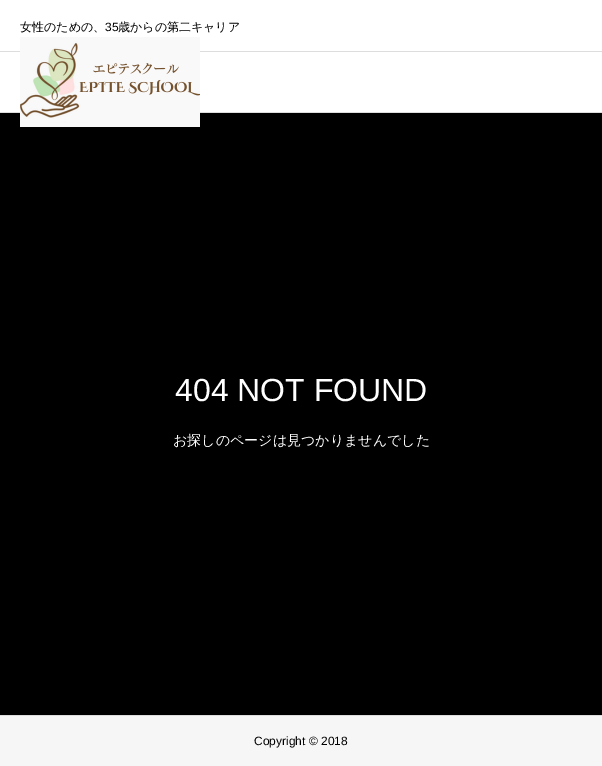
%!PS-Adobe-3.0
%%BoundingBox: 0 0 602 766
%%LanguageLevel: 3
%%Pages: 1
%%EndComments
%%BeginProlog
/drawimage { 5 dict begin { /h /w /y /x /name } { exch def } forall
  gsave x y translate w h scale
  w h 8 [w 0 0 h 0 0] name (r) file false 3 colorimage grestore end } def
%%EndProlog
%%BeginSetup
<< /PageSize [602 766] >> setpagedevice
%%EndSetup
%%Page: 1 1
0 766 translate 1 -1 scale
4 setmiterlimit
0.965 setgray
0 0 602 766 rectfill
1 setgray
0 0 602 112 rectfill
0.867 setgray
0 112 602 1 rectfill
0 51 602 1 rectfill
0 setgray
0 113 602 602 rectfill
(images/1.raw) 20 37 180 90 drawimage
0.867 setgray
0 715 602 1 rectfill
/WenQuanYiZenHei-Medium [12 0 0 -12 0 0] selectfont
0 setgray
20 31 moveto (女性のための、) show
/LiberationSans-Regular [12 0 0 -12 0 0] selectfont
105 31 moveto (35) show
/WenQuanYiZenHei-Medium [12 0 0 -12 0 0] selectfont
118 31 moveto (歳からの第二キャリア) show
/LiberationSans-Regular [32 0 0 -32 0 0] selectfont
1 setgray
175 401 moveto (404 NOT FOUND) show
/WenQuanYiZenHei-Medium [14 0 0 -14 0 0] selectfont
173 445 moveto (お探しのページは見つかりませんでした) show
/LiberationSans-Regular [12 0 0 -12 0 0] selectfont
0 setgray
254 745 moveto (Copyright © 2018) show
showpage
%%EOF
